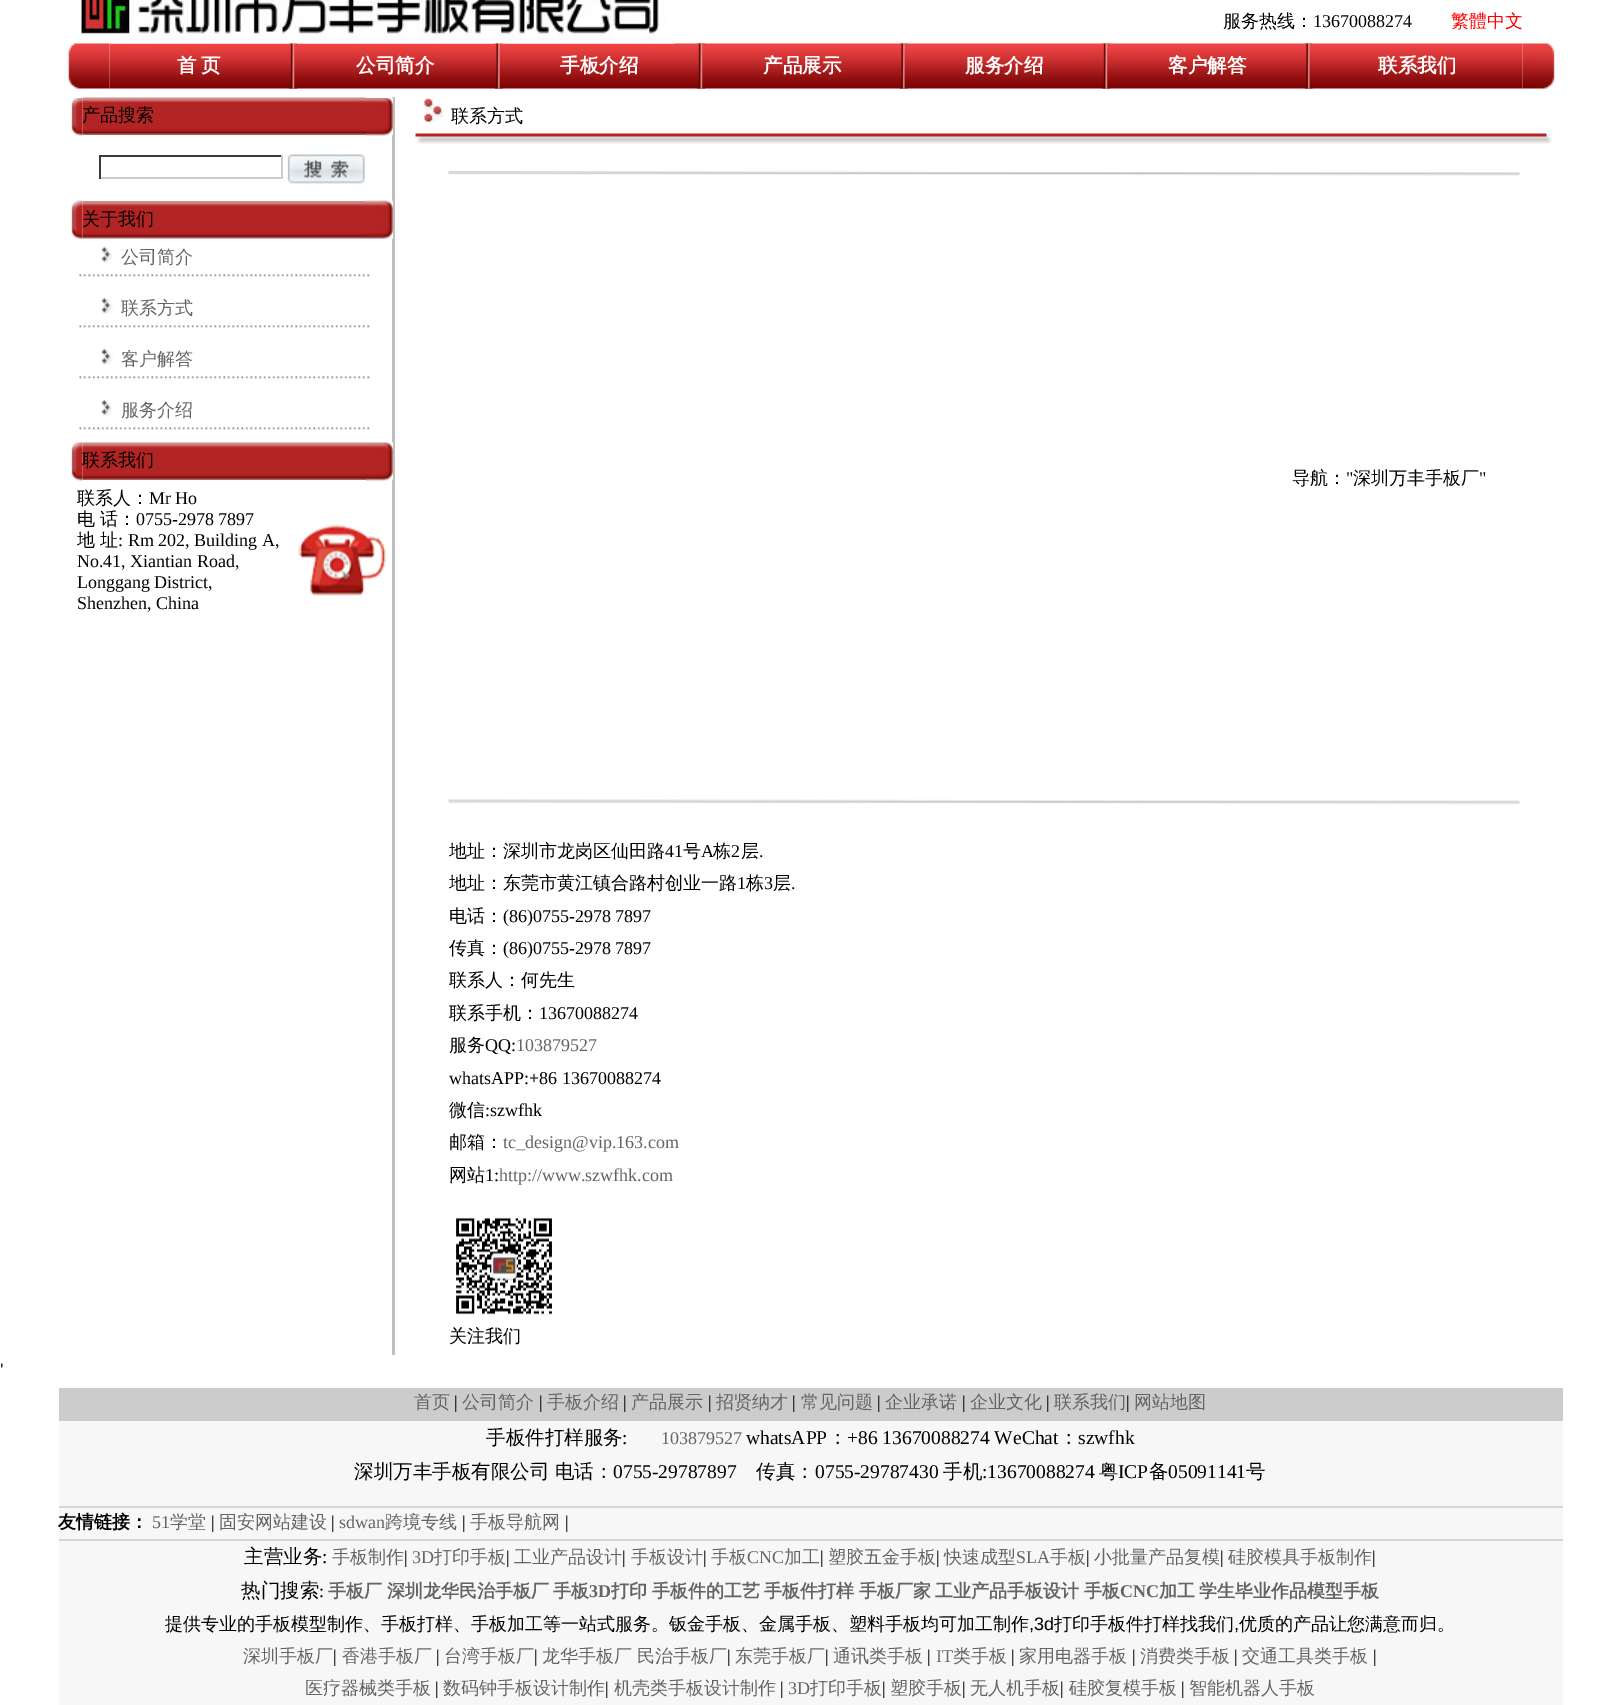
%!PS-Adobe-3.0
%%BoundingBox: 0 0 1619 1705
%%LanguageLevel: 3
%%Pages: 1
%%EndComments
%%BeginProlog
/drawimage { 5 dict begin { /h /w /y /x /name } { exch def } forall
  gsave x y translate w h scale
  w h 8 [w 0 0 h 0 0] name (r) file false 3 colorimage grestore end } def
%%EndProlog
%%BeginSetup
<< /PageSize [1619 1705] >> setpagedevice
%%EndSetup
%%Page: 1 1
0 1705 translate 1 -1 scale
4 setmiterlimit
1 setgray
0 0 1619 1705 rectfill
(images/3.raw) 109 43 1414 46 drawimage
(images/1.raw) 80 0 595 44 drawimage
(images/2.raw) 68 43 42 46 drawimage
(images/4.raw) 289 43 8 46 drawimage
(images/5.raw) 495 43 8 46 drawimage
(images/6.raw) 697 43 8 46 drawimage
(images/7.raw) 900 43 8 46 drawimage
(images/8.raw) 1102 43 8 46 drawimage
(images/7.raw) 1305 43 8 46 drawimage
(images/9.raw) 1522 43 33 46 drawimage
0.749 setgray
392 97 3 1258 rectfill
(images/11.raw) 82 97 284 38 drawimage
(images/10.raw) 71 98 12 38 drawimage
(images/12.raw) 366 98 27 38 drawimage
0.227 0.235 0.212 setrgbcolor
99 155 183 2 rectfill
0.8 setgray
281 155 2 24 rectfill
99 177 183 2 rectfill
0.227 0.235 0.212 setrgbcolor
99 155 2 24 rectfill
(images/13.raw) 287 154 78 30 drawimage
(images/15.raw) 82 201 284 38 drawimage
(images/14.raw) 71 200 12 39 drawimage
(images/16.raw) 366 200 27 39 drawimage
(images/17.raw) 101 246 12 17 drawimage
(images/18.raw) 79 274 291 3 drawimage
(images/17.raw) 101 297 12 17 drawimage
(images/18.raw) 79 325 291 3 drawimage
(images/19.raw) 101 348 12 17 drawimage
(images/18.raw) 79 376 291 3 drawimage
(images/17.raw) 101 399 12 17 drawimage
(images/18.raw) 79 427 291 3 drawimage
(images/21.raw) 82 442 284 38 drawimage
(images/20.raw) 71 442 12 39 drawimage
(images/22.raw) 366 442 27 39 drawimage
(images/23.raw) 298 524 88 72 drawimage
(images/24.raw) 422 96 22 26 drawimage
(images/25.raw) 415 133 1137 11 drawimage
(images/26.raw) 448 171 1072 5 drawimage
(images/27.raw) 448 799 1072 6 drawimage
(images/28.raw) 456 1217 96 98 drawimage
0.8 setgray
59 1388 1504 33 rectfill
0.969 setgray
59 1421 1504 284 rectfill
0.835 setgray
59 1506 1504 2 rectfill
59 1539 1504 2 rectfill
/WenQuanYiZenHei-Medium [18 0 0 -18 0 0] selectfont
0 setgray
1223 27 moveto (服务热线：) show
/LiberationSerif-Regular [18 0 0 -18 0 0] selectfont
1313 27 moveto (13670088274) show
/WenQuanYiZenHei-Medium [18 0 0 -18 0 0] selectfont
1 0 0 setrgbcolor
1451 27 moveto (繁體中文) show
/WenQuanYiZenHei-Bold [19.5 0 0 -19.5 0 0] selectfont
1 setgray
177 72 moveto -1 0 32 (首 页) widthshow
356 72 moveto (公司简介) show
560 72 moveto (手板介绍) show
763 72 moveto (产品展示) show
965 72 moveto (服务介绍) show
1168 72 moveto (客户解答) show
1378 72 moveto (联系我们) show
/WenQuanYiZenHei-Medium [18 0 0 -18 0 0] selectfont
0 setgray
82 121 moveto (产品搜索) show
82 225 moveto (关于我们) show
0.392 setgray
121 263 moveto (公司简介) show
121 314 moveto (联系方式) show
121 365 moveto (客户解答) show
121 416 moveto (服务介绍) show
0 setgray
82 466 moveto (联系我们) show
77 504 moveto (联系人：) show
/LiberationSerif-Regular [18 0 0 -18 0 0] selectfont
149 504 moveto (Mr Ho) show
/WenQuanYiZenHei-Medium [18 0 0 -18 0 0] selectfont
77 525 moveto (电) show
100 525 moveto (话：) show
/LiberationSerif-Regular [18 0 0 -18 0 0] selectfont
136 525 moveto (0755-2978 7897) show
/WenQuanYiZenHei-Medium [18 0 0 -18 0 0] selectfont
77 546 moveto (地) show
100 546 moveto (址) show
/LiberationSerif-Regular [18 0 0 -18 0 0] selectfont
118 546 moveto (: Rm 202, Building A,) show
77 567 moveto (No.41, Xiantian Road,) show
77 588 moveto (Longgang District,) show
77 609 moveto (Shenzhen, China) show
/WenQuanYiZenHei-Medium [18 0 0 -18 0 0] selectfont
451 122 moveto (联系方式) show
1292 484 moveto (导航：) show
/LiberationSerif-Regular [18 0 0 -18 0 0] selectfont
1346 484 moveto (") show
/WenQuanYiZenHei-Medium [18 0 0 -18 0 0] selectfont
1353 484 moveto (深圳万丰手板厂) show
/LiberationSerif-Regular [18 0 0 -18 0 0] selectfont
1479 484 moveto (") show
/WenQuanYiZenHei-Medium [18 0 0 -18 0 0] selectfont
449 857 moveto (地址：深圳市龙岗区仙田路) show
/LiberationSerif-Regular [18 0 0 -18 0 0] selectfont
665 857 moveto (41) show
/WenQuanYiZenHei-Medium [18 0 0 -18 0 0] selectfont
683 857 moveto (号) show
/LiberationSerif-Regular [18 0 0 -18 0 0] selectfont
701 857 moveto (A) show
/WenQuanYiZenHei-Medium [18 0 0 -18 0 0] selectfont
713 857 moveto (栋) show
/LiberationSerif-Regular [18 0 0 -18 0 0] selectfont
731 857 moveto (2) show
/WenQuanYiZenHei-Medium [18 0 0 -18 0 0] selectfont
741 857 moveto (层) show
/LiberationSerif-Regular [18 0 0 -18 0 0] selectfont
759 857 moveto (.) show
/WenQuanYiZenHei-Medium [18 0 0 -18 0 0] selectfont
449 889 moveto (地址：东莞市黄江镇合路村创业一路) show
/LiberationSerif-Regular [18 0 0 -18 0 0] selectfont
737 889 moveto (1) show
/WenQuanYiZenHei-Medium [18 0 0 -18 0 0] selectfont
746 889 moveto (栋) show
/LiberationSerif-Regular [18 0 0 -18 0 0] selectfont
764 889 moveto (3) show
/WenQuanYiZenHei-Medium [18 0 0 -18 0 0] selectfont
773 889 moveto (层) show
/LiberationSerif-Regular [18 0 0 -18 0 0] selectfont
791 889 moveto (.) show
/WenQuanYiZenHei-Medium [18 0 0 -18 0 0] selectfont
449 922 moveto (电话：) show
/LiberationSerif-Regular [18 0 0 -18 0 0] selectfont
503 922 moveto (\(86\)0755-2978 7897) show
/WenQuanYiZenHei-Medium [18 0 0 -18 0 0] selectfont
449 954 moveto (传真：) show
/LiberationSerif-Regular [18 0 0 -18 0 0] selectfont
503 954 moveto (\(86\)0755-2978 7897) show
/WenQuanYiZenHei-Medium [18 0 0 -18 0 0] selectfont
449 986 moveto (联系人：何先生) show
449 1019 moveto (联系手机：) show
/LiberationSerif-Regular [18 0 0 -18 0 0] selectfont
539 1019 moveto (13670088274) show
/WenQuanYiZenHei-Medium [18 0 0 -18 0 0] selectfont
449 1051 moveto (服务) show
/LiberationSerif-Regular [18 0 0 -18 0 0] selectfont
485 1051 moveto (QQ:) show
0.392 setgray
516 1051 moveto (103879527) show
0 setgray
449 1084 moveto (whatsAPP:+86 13670088274) show
/WenQuanYiZenHei-Medium [18 0 0 -18 0 0] selectfont
449 1116 moveto (微信) show
/LiberationSerif-Regular [18 0 0 -18 0 0] selectfont
485 1116 moveto (:szwfhk) show
/WenQuanYiZenHei-Medium [18 0 0 -18 0 0] selectfont
449 1148 moveto (邮箱：) show
/LiberationSerif-Regular [18 0 0 -18 0 0] selectfont
0.392 setgray
503 1148 moveto (tc_design@vip.163.com) show
/WenQuanYiZenHei-Medium [18 0 0 -18 0 0] selectfont
0 setgray
449 1181 moveto (网站) show
/LiberationSerif-Regular [18 0 0 -18 0 0] selectfont
485 1181 moveto (1:) show
0.392 setgray
499 1181 moveto (http://www.szwfhk.com) show
/WenQuanYiZenHei-Medium [18 0 0 -18 0 0] selectfont
0 setgray
449 1342 moveto (关注我们) show
/LiberationSans-Regular [18 0 0 -18 0 0] selectfont
0.133 setgray
0 1376 moveto (') show
/WenQuanYiZenHei-Medium [18 0 0 -18 0 0] selectfont
0.392 setgray
414 1408 moveto (首页) show
/LiberationSerif-Regular [18 0 0 -18 0 0] selectfont
0 setgray
454 1408 moveto (|) show
/WenQuanYiZenHei-Medium [18 0 0 -18 0 0] selectfont
0.392 setgray
462 1408 moveto (公司简介) show
/LiberationSerif-Regular [18 0 0 -18 0 0] selectfont
0 setgray
539 1408 moveto (|) show
/WenQuanYiZenHei-Medium [18 0 0 -18 0 0] selectfont
0.392 setgray
547 1408 moveto (手板介绍) show
/LiberationSerif-Regular [18 0 0 -18 0 0] selectfont
0 setgray
623 1408 moveto (|) show
/WenQuanYiZenHei-Medium [18 0 0 -18 0 0] selectfont
0.392 setgray
631 1408 moveto (产品展示) show
/LiberationSerif-Regular [18 0 0 -18 0 0] selectfont
0 setgray
708 1408 moveto (|) show
/WenQuanYiZenHei-Medium [18 0 0 -18 0 0] selectfont
0.392 setgray
716 1408 moveto (招贤纳才) show
/LiberationSerif-Regular [18 0 0 -18 0 0] selectfont
0 setgray
792 1408 moveto (|) show
/WenQuanYiZenHei-Medium [18 0 0 -18 0 0] selectfont
0.392 setgray
801 1408 moveto (常见问题) show
/LiberationSerif-Regular [18 0 0 -18 0 0] selectfont
0 setgray
877 1408 moveto (|) show
/WenQuanYiZenHei-Medium [18 0 0 -18 0 0] selectfont
0.392 setgray
885 1408 moveto (企业承诺) show
/LiberationSerif-Regular [18 0 0 -18 0 0] selectfont
0 setgray
962 1408 moveto (|) show
/WenQuanYiZenHei-Medium [18 0 0 -18 0 0] selectfont
0.392 setgray
970 1408 moveto (企业文化) show
/LiberationSerif-Regular [18 0 0 -18 0 0] selectfont
0 setgray
1046 1408 moveto (|) show
/WenQuanYiZenHei-Medium [18 0 0 -18 0 0] selectfont
0.392 setgray
1054 1408 moveto (联系我们) show
/LiberationSerif-Regular [18 0 0 -18 0 0] selectfont
0 setgray
1126 1408 moveto (|) show
/WenQuanYiZenHei-Medium [18 0 0 -18 0 0] selectfont
0.392 setgray
1134 1408 moveto (网站地图) show
/WenQuanYiZenHei-Medium [19.5 0 0 -19.5 0 0] selectfont
0 setgray
486 1444 moveto (手板件打样服务) show
/LiberationSerif-Regular [19.5 0 0 -19.5 0 0] selectfont
622 1444 moveto (:) show
/LiberationSerif-Regular [18 0 0 -18 0 0] selectfont
0.392 setgray
661 1444 moveto (103879527) show
/LiberationSerif-Regular [19.5 0 0 -19.5 0 0] selectfont
0 setgray
746 1444 moveto (whatsAPP) show
/WenQuanYiZenHei-Medium [19.5 0 0 -19.5 0 0] selectfont
828 1444 moveto (：) show
/LiberationSerif-Regular [19.5 0 0 -19.5 0 0] selectfont
847 1444 moveto (+86 13670088274 WeChat) show
/WenQuanYiZenHei-Medium [19.5 0 0 -19.5 0 0] selectfont
1059 1444 moveto (：) show
/LiberationSerif-Regular [19.5 0 0 -19.5 0 0] selectfont
1078 1444 moveto (szwfhk) show
/WenQuanYiZenHei-Medium [19.5 0 0 -19.5 0 0] selectfont
354 1478 moveto (深圳万丰手板有限公司 电话：) show
/LiberationSerif-Regular [19.5 0 0 -19.5 0 0] selectfont
613 1478 moveto (0755-29787897) show
/WenQuanYiZenHei-Medium [19.5 0 0 -19.5 0 0] selectfont
756 1478 moveto (传真：) show
/LiberationSerif-Regular [19.5 0 0 -19.5 0 0] selectfont
815 1478 moveto (0755-29787430) show
/WenQuanYiZenHei-Medium [19.5 0 0 -19.5 0 0] selectfont
943 1478 moveto (手机) show
/LiberationSerif-Regular [19.5 0 0 -19.5 0 0] selectfont
982 1478 moveto (:13670088274) show
/WenQuanYiZenHei-Medium [19.5 0 0 -19.5 0 0] selectfont
1099 1478 moveto (粤) show
/LiberationSerif-Regular [19.5 0 0 -19.5 0 0] selectfont
1118 1478 moveto (ICP) show
/WenQuanYiZenHei-Medium [19.5 0 0 -19.5 0 0] selectfont
1149 1478 moveto (备) show
/LiberationSerif-Regular [19.5 0 0 -19.5 0 0] selectfont
1168 1478 moveto (05091141) show
/WenQuanYiZenHei-Medium [19.5 0 0 -19.5 0 0] selectfont
1246 1478 moveto (号) show
/WenQuanYiZenHei-Bold [18 0 0 -18 0 0] selectfont
58 1528 moveto (友情链接：) show
/LiberationSerif-Regular [18 0 0 -18 0 0] selectfont
0.392 setgray
152 1528 moveto (51) show
/WenQuanYiZenHei-Medium [18 0 0 -18 0 0] selectfont
170 1528 moveto (学堂) show
/LiberationSerif-Regular [18 0 0 -18 0 0] selectfont
0 setgray
211 1528 moveto (|) show
/WenQuanYiZenHei-Medium [18 0 0 -18 0 0] selectfont
0.392 setgray
219 1528 moveto (固安网站建设) show
/LiberationSerif-Regular [18 0 0 -18 0 0] selectfont
0 setgray
331 1528 moveto (|) show
0.392 setgray
339 1528 moveto (sdwan) show
/WenQuanYiZenHei-Medium [18 0 0 -18 0 0] selectfont
385 1528 moveto (跨境专线) show
/LiberationSerif-Regular [18 0 0 -18 0 0] selectfont
0 setgray
462 1528 moveto (|) show
/WenQuanYiZenHei-Medium [18 0 0 -18 0 0] selectfont
0.392 setgray
470 1528 moveto (手板导航网) show
/LiberationSerif-Regular [18 0 0 -18 0 0] selectfont
0 setgray
565 1528 moveto (|) show
/WenQuanYiZenHei-Medium [19.5 0 0 -19.5 0 0] selectfont
244 1563 moveto (主营业务) show
/LiberationSerif-Regular [19.5 0 0 -19.5 0 0] selectfont
322 1563 moveto (:) show
/WenQuanYiZenHei-Medium [18 0 0 -18 0 0] selectfont
0.392 setgray
332 1563 moveto (手板制作) show
/LiberationSerif-Regular [18 0 0 -18 0 0] selectfont
0 setgray
404 1563 moveto (|) show
0.392 setgray
412 1563 moveto (3D) show
/WenQuanYiZenHei-Medium [18 0 0 -18 0 0] selectfont
434 1563 moveto (打印手板) show
/LiberationSerif-Regular [18 0 0 -18 0 0] selectfont
0 setgray
506 1563 moveto (|) show
/WenQuanYiZenHei-Medium [18 0 0 -18 0 0] selectfont
0.392 setgray
514 1563 moveto (工业产品设计) show
/LiberationSerif-Regular [18 0 0 -18 0 0] selectfont
0 setgray
622 1563 moveto (|) show
/WenQuanYiZenHei-Medium [18 0 0 -18 0 0] selectfont
0.392 setgray
631 1563 moveto (手板设计) show
/LiberationSerif-Regular [18 0 0 -18 0 0] selectfont
0 setgray
703 1563 moveto (|) show
/WenQuanYiZenHei-Medium [18 0 0 -18 0 0] selectfont
0.392 setgray
711 1563 moveto (手板) show
/LiberationSerif-Regular [18 0 0 -18 0 0] selectfont
747 1563 moveto (CNC) show
/WenQuanYiZenHei-Medium [18 0 0 -18 0 0] selectfont
784 1563 moveto (加工) show
/LiberationSerif-Regular [18 0 0 -18 0 0] selectfont
0 setgray
820 1563 moveto (|) show
/WenQuanYiZenHei-Medium [18 0 0 -18 0 0] selectfont
0.392 setgray
828 1563 moveto (塑胶五金手板) show
/LiberationSerif-Regular [18 0 0 -18 0 0] selectfont
0 setgray
936 1563 moveto (|) show
/WenQuanYiZenHei-Medium [18 0 0 -18 0 0] selectfont
0.392 setgray
944 1563 moveto (快速成型) show
/LiberationSerif-Regular [18 0 0 -18 0 0] selectfont
1016 1563 moveto (SLA) show
/WenQuanYiZenHei-Medium [18 0 0 -18 0 0] selectfont
1050 1563 moveto (手板) show
/LiberationSerif-Regular [18 0 0 -18 0 0] selectfont
0 setgray
1086 1563 moveto (|) show
/WenQuanYiZenHei-Medium [18 0 0 -18 0 0] selectfont
0.392 setgray
1094 1563 moveto (小批量产品复模) show
/LiberationSerif-Regular [18 0 0 -18 0 0] selectfont
0 setgray
1220 1563 moveto (|) show
/WenQuanYiZenHei-Medium [18 0 0 -18 0 0] selectfont
0.392 setgray
1228 1563 moveto (硅胶模具手板制作) show
/LiberationSerif-Regular [18 0 0 -18 0 0] selectfont
0 setgray
1372 1563 moveto (|) show
/WenQuanYiZenHei-Medium [19.5 0 0 -19.5 0 0] selectfont
241 1597 moveto (热门搜索) show
/LiberationSerif-Regular [18 0 0 -18 0 0] selectfont
319 1597 moveto (:) show
/WenQuanYiZenHei-Bold [18 0 0 -18 0 0] selectfont
0.392 setgray
328 1597 moveto (手板厂) show
387 1597 moveto (深圳龙华民治手板厂) show
553 1597 moveto (手板) show
/LiberationSerif-Bold [18 0 0 -18 0 0] selectfont
589 1597 moveto (3D) show
/WenQuanYiZenHei-Bold [18 0 0 -18 0 0] selectfont
611 1597 moveto (打印) show
652 1597 moveto (手板件的工艺) show
764 1597 moveto (手板件打样) show
859 1597 moveto (手板厂家) show
935 1597 moveto (工业产品手板设计) show
1084 1597 moveto (手板) show
/LiberationSerif-Bold [18 0 0 -18 0 0] selectfont
1120 1597 moveto (CNC) show
/WenQuanYiZenHei-Bold [18 0 0 -18 0 0] selectfont
1159 1597 moveto (加工) show
1199 1597 moveto (学生毕业作品模型手板) show
/WenQuanYiZenHei-Medium [18 0 0 -18 0 0] selectfont
0 setgray
165 1630 moveto (提供专业的手板模型制作、手板打样、手板加工等一站式服务。钣金手板、金属手板、塑料手板均可加工制作) show
/LiberationSans-Regular [18 0 0 -18 0 0] selectfont
1029 1630 moveto (,3d) show
/WenQuanYiZenHei-Medium [18 0 0 -18 0 0] selectfont
1054 1630 moveto (打印手板件打样找我们) show
/LiberationSans-Regular [18 0 0 -18 0 0] selectfont
1234 1630 moveto (,) show
/WenQuanYiZenHei-Medium [18 0 0 -18 0 0] selectfont
1239 1630 moveto (优质的产品让您满意而归。) show
0.392 setgray
243 1662 moveto (深圳手板厂) show
/LiberationSerif-Regular [18 0 0 -18 0 0] selectfont
0 setgray
333 1662 moveto (|) show
/WenQuanYiZenHei-Medium [18 0 0 -18 0 0] selectfont
0.392 setgray
342 1662 moveto (香港手板厂) show
/LiberationSerif-Regular [18 0 0 -18 0 0] selectfont
0 setgray
436 1662 moveto (|) show
/WenQuanYiZenHei-Medium [18 0 0 -18 0 0] selectfont
0.392 setgray
444 1662 moveto (台湾手板厂) show
/LiberationSerif-Regular [18 0 0 -18 0 0] selectfont
0 setgray
534 1662 moveto (|) show
/WenQuanYiZenHei-Medium [18 0 0 -18 0 0] selectfont
0.392 setgray
542 1662 moveto (龙华手板厂) show
637 1662 moveto (民治手板厂) show
/LiberationSerif-Regular [18 0 0 -18 0 0] selectfont
0 setgray
727 1662 moveto (|) show
/WenQuanYiZenHei-Medium [18 0 0 -18 0 0] selectfont
0.392 setgray
735 1662 moveto (东莞手板厂) show
/LiberationSerif-Regular [18 0 0 -18 0 0] selectfont
0 setgray
825 1662 moveto (|) show
/WenQuanYiZenHei-Medium [18 0 0 -18 0 0] selectfont
0.392 setgray
833 1662 moveto (通讯类手板) show
/LiberationSerif-Regular [18 0 0 -18 0 0] selectfont
0 setgray
927 1662 moveto (|) show
0.392 setgray
936 1662 moveto (IT) show
/WenQuanYiZenHei-Medium [18 0 0 -18 0 0] selectfont
953 1662 moveto (类手板) show
/LiberationSerif-Regular [18 0 0 -18 0 0] selectfont
0 setgray
1011 1662 moveto (|) show
/WenQuanYiZenHei-Medium [18 0 0 -18 0 0] selectfont
0.392 setgray
1019 1662 moveto (家用电器手板) show
/LiberationSerif-Regular [18 0 0 -18 0 0] selectfont
0 setgray
1132 1662 moveto (|) show
/WenQuanYiZenHei-Medium [18 0 0 -18 0 0] selectfont
0.392 setgray
1140 1662 moveto (消费类手板) show
/LiberationSerif-Regular [18 0 0 -18 0 0] selectfont
0 setgray
1234 1662 moveto (|) show
/WenQuanYiZenHei-Medium [18 0 0 -18 0 0] selectfont
0.392 setgray
1242 1662 moveto (交通工具类手板) show
/LiberationSerif-Regular [18 0 0 -18 0 0] selectfont
0 setgray
1373 1662 moveto (|) show
/WenQuanYiZenHei-Medium [18 0 0 -18 0 0] selectfont
0.392 setgray
305 1694 moveto (医疗器械类手板) show
/LiberationSerif-Regular [18 0 0 -18 0 0] selectfont
0 setgray
435 1694 moveto (|) show
/WenQuanYiZenHei-Medium [18 0 0 -18 0 0] selectfont
0.392 setgray
443 1694 moveto (数码钟手板设计制作) show
/LiberationSerif-Regular [18 0 0 -18 0 0] selectfont
0 setgray
605 1694 moveto (|) show
/WenQuanYiZenHei-Medium [18 0 0 -18 0 0] selectfont
0.392 setgray
614 1694 moveto (机壳类手板设计制作) show
/LiberationSerif-Regular [18 0 0 -18 0 0] selectfont
0 setgray
780 1694 moveto (|) show
0.392 setgray
788 1694 moveto (3D) show
/WenQuanYiZenHei-Medium [18 0 0 -18 0 0] selectfont
810 1694 moveto (打印手板) show
/LiberationSerif-Regular [18 0 0 -18 0 0] selectfont
0 setgray
882 1694 moveto (|) show
/WenQuanYiZenHei-Medium [18 0 0 -18 0 0] selectfont
0.392 setgray
890 1694 moveto (塑胶手板) show
/LiberationSerif-Regular [18 0 0 -18 0 0] selectfont
0 setgray
962 1694 moveto (|) show
/WenQuanYiZenHei-Medium [18 0 0 -18 0 0] selectfont
0.392 setgray
970 1694 moveto (无人机手板) show
/LiberationSerif-Regular [18 0 0 -18 0 0] selectfont
0 setgray
1060 1694 moveto (|) show
/WenQuanYiZenHei-Medium [18 0 0 -18 0 0] selectfont
0.392 setgray
1069 1694 moveto (硅胶复模手板) show
/LiberationSerif-Regular [18 0 0 -18 0 0] selectfont
0 setgray
1181 1694 moveto (|) show
/WenQuanYiZenHei-Medium [18 0 0 -18 0 0] selectfont
0.392 setgray
1189 1694 moveto (智能机器人手板) show
showpage
%%EOF
